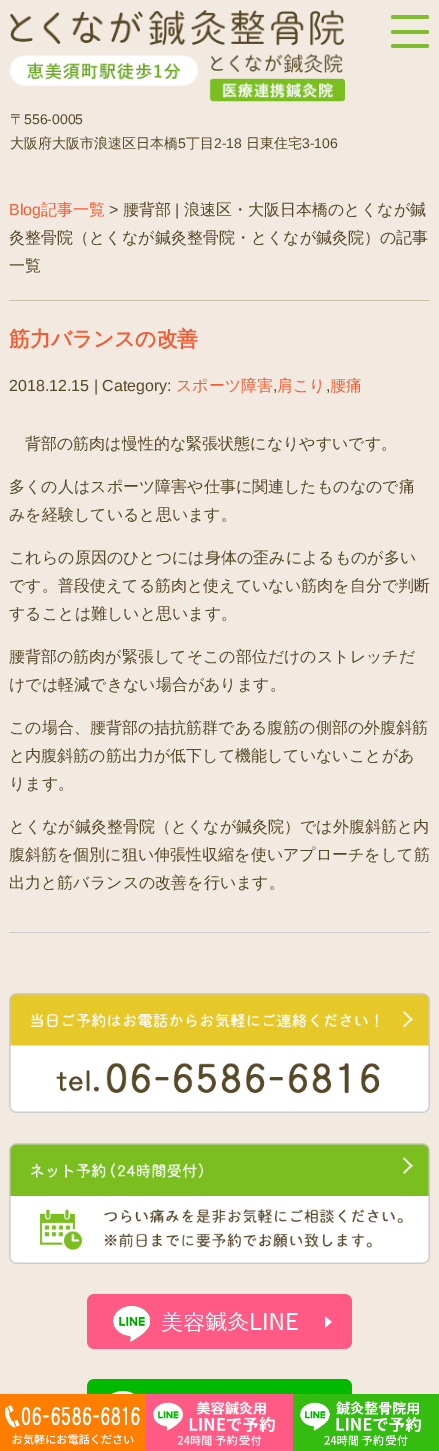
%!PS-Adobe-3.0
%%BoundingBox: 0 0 439 1451
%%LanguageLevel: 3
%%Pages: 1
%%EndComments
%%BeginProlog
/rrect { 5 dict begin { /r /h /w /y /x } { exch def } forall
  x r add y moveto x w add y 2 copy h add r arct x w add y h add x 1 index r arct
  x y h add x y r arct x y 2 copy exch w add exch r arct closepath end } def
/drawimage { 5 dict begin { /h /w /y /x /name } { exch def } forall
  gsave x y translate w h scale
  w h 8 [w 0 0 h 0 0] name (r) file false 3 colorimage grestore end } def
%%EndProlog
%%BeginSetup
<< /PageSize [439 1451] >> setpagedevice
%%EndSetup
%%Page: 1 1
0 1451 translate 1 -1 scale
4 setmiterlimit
0.949 0.918 0.878 setrgbcolor
0 0 439 1451 rectfill
0.502 0.741 0.173 setrgbcolor
391 15 38 4 2 rrect fill
391 30 38 4 2 rrect fill
391 44 38 4 2 rrect fill
(images/1.raw) 10 10 335 92 drawimage
0.796 0.761 0.675 setrgbcolor
9 300 421 1 rectfill
0.8 setgray
9 932 421 1 rectfill
(images/2.raw) 9 993 421 120 drawimage
(images/3.raw) 9 1143 421 121 drawimage
(images/4.raw) 87 1294 265 55 drawimage
(images/5.raw) 87 1379 265 15 drawimage
(images/6.raw) 0 1394 146 57 drawimage
(images/7.raw) 146 1393 147 58 drawimage
(images/8.raw) 293 1394 146 57 drawimage
/WenQuanYiZenHei-Medium [14 0 0 -14 0 0] selectfont
0.341 0.282 0.149 setrgbcolor
10 124 moveto (〒) show
/LiberationSans-Regular [14 0 0 -14 0 0] selectfont
24 124 moveto (556-0005) show
/WenQuanYiZenHei-Medium [14 0 0 -14 0 0] selectfont
10 148 moveto (大阪府大阪市浪速区日本橋) show
/LiberationSans-Regular [14 0 0 -14 0 0] selectfont
178 148 moveto (5) show
/WenQuanYiZenHei-Medium [14 0 0 -14 0 0] selectfont
186 148 moveto (丁目) show
/LiberationSans-Regular [14 0 0 -14 0 0] selectfont
214 148 moveto (2-18) show
/WenQuanYiZenHei-Medium [14 0 0 -14 0 0] selectfont
246 148 moveto (日東住宅) show
/LiberationSans-Regular [14 0 0 -14 0 0] selectfont
302 148 moveto (3-106) show
/LiberationSans-Regular [16 0 0 -16 0 0] selectfont
0.957 0.361 0.204 setrgbcolor
9 215 moveto (Blog) show
/WenQuanYiZenHei-Medium [16 0 0 -16 0 0] selectfont
41 215 moveto (記事一覧) show
/LiberationSans-Regular [16 0 0 -16 0 0] selectfont
0.341 0.282 0.149 setrgbcolor
109 215 moveto (>) show
/WenQuanYiZenHei-Medium [16 0 0 -16 0 0] selectfont
123 215 moveto (腰背部) show
/LiberationSans-Regular [16 0 0 -16 0 0] selectfont
175 215 moveto (|) show
/WenQuanYiZenHei-Medium [16 0 0 -16 0 0] selectfont
184 215 moveto (浪速区・大阪日本橋のとくなが鍼) show
9 243 moveto (灸整骨院（とくなが鍼灸整骨院・とくなが鍼灸院）の記事) show
9 271 moveto (一覧) show
/WenQuanYiZenHei-Bold [20.75 0 0 -20.75 0 0] selectfont
0.957 0.361 0.204 setrgbcolor
9 346 moveto (筋力バランスの改善) show
/LiberationSans-Regular [16 0 0 -16 0 0] selectfont
0.341 0.282 0.149 setrgbcolor
9 391 moveto (2018.12.15 | Category:) show
/WenQuanYiZenHei-Medium [16 0 0 -16 0 0] selectfont
0.957 0.361 0.204 setrgbcolor
176 391 moveto (スポーツ障害) show
/LiberationSans-Regular [16 0 0 -16 0 0] selectfont
0.341 0.282 0.149 setrgbcolor
273 391 moveto (,) show
/WenQuanYiZenHei-Medium [16 0 0 -16 0 0] selectfont
0.957 0.361 0.204 setrgbcolor
277 391 moveto (肩こり) show
/LiberationSans-Regular [16 0 0 -16 0 0] selectfont
0.341 0.282 0.149 setrgbcolor
326 391 moveto (,) show
/WenQuanYiZenHei-Medium [16 0 0 -16 0 0] selectfont
0.957 0.361 0.204 setrgbcolor
330 391 moveto (腰痛) show
0.341 0.282 0.149 setrgbcolor
25 449 moveto (背部の筋肉は慢性的な緊張状態になりやすいです。) show
9 492 moveto (多くの人はスポーツ障害や仕事に関連したものなので痛) show
9 520 moveto (みを経験していると思います。) show
9 563 moveto (これらの原因のひとつには身体の歪みによるものが多い) show
9 591 moveto (です。普段使えてる筋肉と使えていない筋肉を自分で判断) show
9 619 moveto (することは難しいと思います。) show
9 662 moveto (腰背部の筋肉が緊張してそこの部位だけのストレッチだ) show
9 690 moveto (けでは軽減できない場合があります。) show
9 733 moveto (この場合、腰背部の拮抗筋群である腹筋の側部の外腹斜筋) show
9 761 moveto (と内腹斜筋の筋出力が低下して機能していないことがあ) show
9 789 moveto (ります。) show
9 832 moveto (とくなが鍼灸整骨院（とくなが鍼灸院）では外腹斜筋と内) show
9 860 moveto (腹斜筋を個別に狙い伸張性収縮を使いアプローチをして筋) show
9 888 moveto (出力と筋バランスの改善を行います。) show
showpage
%%EOF
